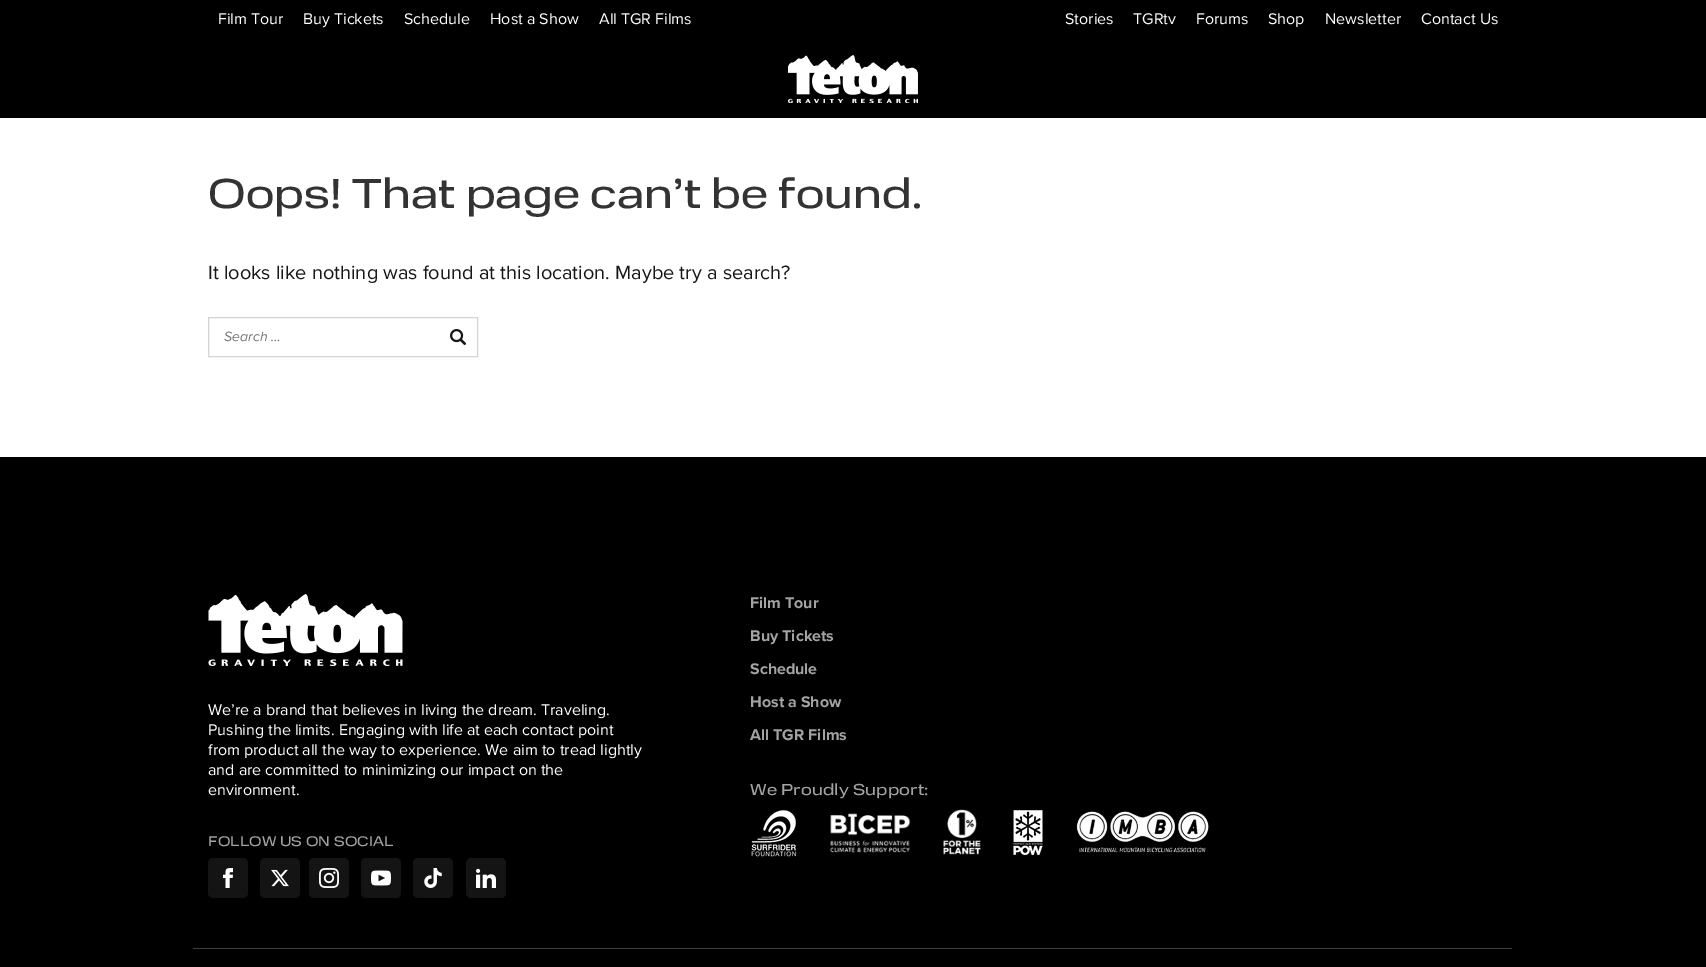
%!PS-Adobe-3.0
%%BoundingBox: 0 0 1706 967
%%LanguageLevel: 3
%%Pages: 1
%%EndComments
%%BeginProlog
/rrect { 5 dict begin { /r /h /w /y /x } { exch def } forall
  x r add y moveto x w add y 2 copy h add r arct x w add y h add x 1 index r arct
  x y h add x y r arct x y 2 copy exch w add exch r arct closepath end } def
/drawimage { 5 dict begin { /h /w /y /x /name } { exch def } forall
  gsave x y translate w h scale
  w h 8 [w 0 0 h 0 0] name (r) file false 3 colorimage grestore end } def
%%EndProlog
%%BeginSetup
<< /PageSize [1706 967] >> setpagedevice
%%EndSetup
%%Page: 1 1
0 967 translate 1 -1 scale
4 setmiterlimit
1 setgray
0 0 1706 967 rectfill
0 setgray
0 0 1706 118 rectfill
(images/1.raw) 788 55 130 48 drawimage
0.831 setgray
208.5 317.5 269 39 rectstroke
(images/2.raw) 450 329 16 16 drawimage
0 setgray
0 457 1706 510 rectfill
(images/3.raw) 208 594 195 72 drawimage
0.078 setgray
208 858 40 40 5 rrect fill
(images/4.raw) 223 868 10 20 drawimage
260 858 40 40 5 rrect fill
(images/5.raw) 271 869 18 18 drawimage
309 858 40 40 5 rrect fill
(images/6.raw) 319 868 20 20 drawimage
361 858 40 40 5 rrect fill
(images/7.raw) 371 870 20 16 drawimage
413 858 40 40 5 rrect fill
(images/8.raw) 424 868 18 20 drawimage
466 858 40 40 5 rrect fill
(images/9.raw) 476 868 20 20 drawimage
(images/10.raw) 751 810 46 47 drawimage
(images/11.raw) 829 813 82 40 drawimage
(images/12.raw) 943 809 38 46 drawimage
(images/13.raw) 1013 810 30 46 drawimage
(images/14.raw) 1076 811 133 42 drawimage
0.239 setgray
193 948 1319 1 rectfill
/ProximaNova-Regular [16 0 0 -16 0 0] selectfont
1 setgray
218 24 moveto (Film Tour) show
303 24 moveto (Buy Tickets) show
404 24 moveto (Schedule) show
490 24 moveto (Host a Show) show
599 24 moveto (All TGR Films) show
1065 24 moveto (Stories) show
1133 24 moveto (TGRtv) show
1196 24 moveto (Forums) show
1268 24 moveto (Shop) show
1325 24 moveto (Newsletter) show
1421 24 moveto (Contact Us) show
/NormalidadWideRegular-Regular [42 0 0 -42 0 0] selectfont
0.2 setgray
208 208 moveto 0.2 0 (Oops! That page can’t be found.) ashow
/ProximaNova-Regular [20 0 0 -20 0 0] selectfont
0.09 setgray
208 279 moveto (It looks like nothing was found at this location. Maybe try a search?) show
/ProximaNova-Italic [14 0 0 -14 0 0] selectfont
0.467 setgray
224 341 moveto (Search …) show
/ProximaNova-Regular [16 0 0 -16 0 0] selectfont
1 setgray
208 715 moveto (We’re a brand that believes in living the dream. Traveling.) show
208 735 moveto (Pushing the limits. Engaging with life at each contact point) show
208 755 moveto (from product all the way to experience. We aim to tread lightly) show
208 775 moveto (and are committed to minimizing our impact on the) show
208 795 moveto (environment.) show
/NormalidadWideRegular-Regular [14 0 0 -14 0 0] selectfont
0.639 setgray
208 846 moveto 0.2 0 (FOLLOW US ON SOCIAL) ashow
/ProximaNova-Bold [16 0 0 -16 0 0] selectfont
750 608 moveto (Film Tour) show
750 641 moveto (Buy Tickets) show
750 674 moveto (Schedule) show
750 707 moveto (Host a Show) show
750 740 moveto (All TGR Films) show
/NormalidadWideRegular-Regular [16 0 0 -16 0 0] selectfont
750 795 moveto 0.2 0 (We Proudly Support:) ashow
showpage
%%EOF
